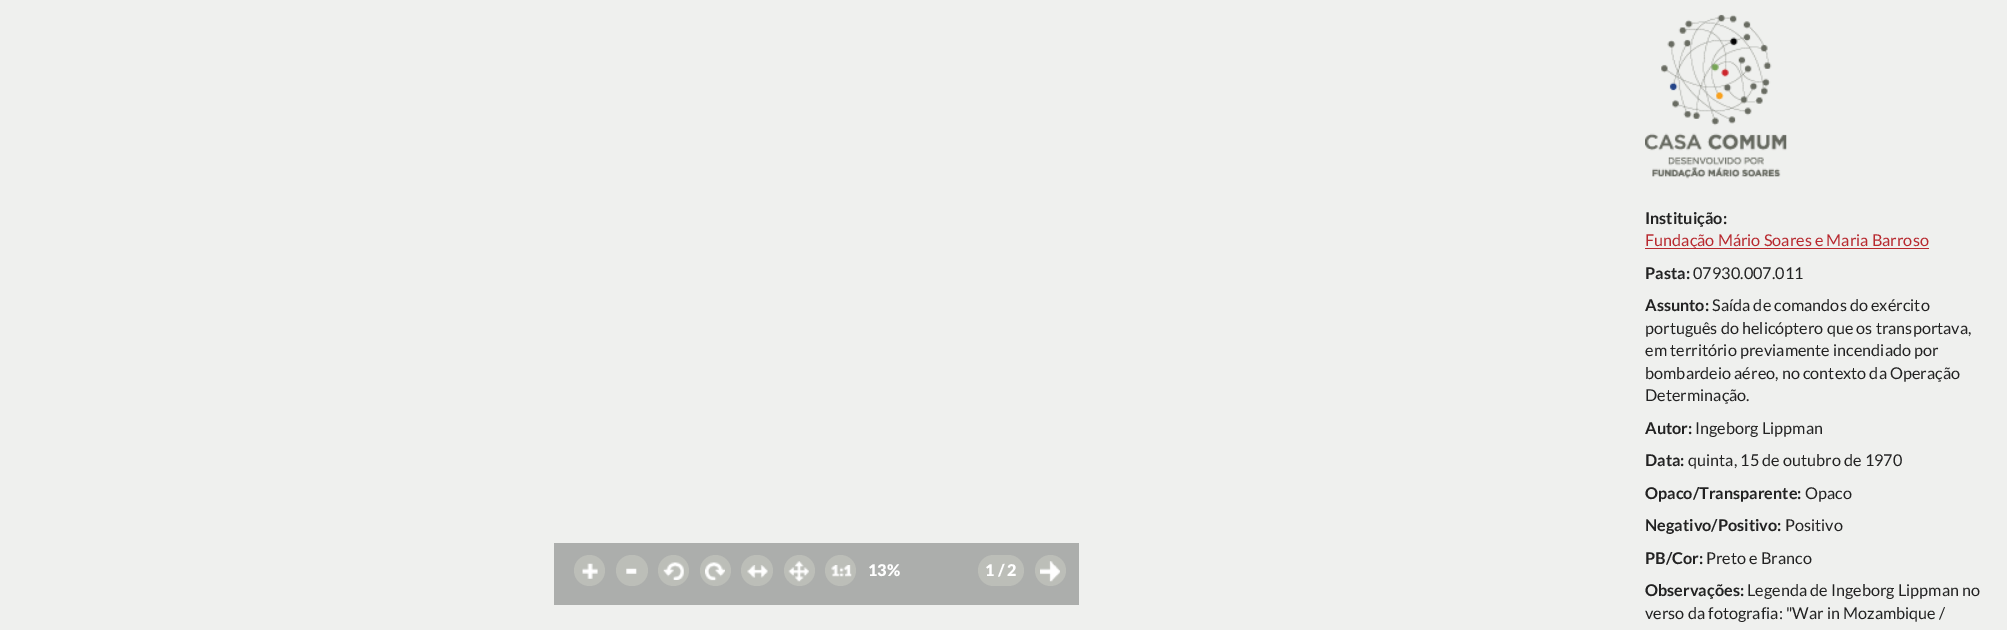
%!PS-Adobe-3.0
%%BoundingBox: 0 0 2007 630
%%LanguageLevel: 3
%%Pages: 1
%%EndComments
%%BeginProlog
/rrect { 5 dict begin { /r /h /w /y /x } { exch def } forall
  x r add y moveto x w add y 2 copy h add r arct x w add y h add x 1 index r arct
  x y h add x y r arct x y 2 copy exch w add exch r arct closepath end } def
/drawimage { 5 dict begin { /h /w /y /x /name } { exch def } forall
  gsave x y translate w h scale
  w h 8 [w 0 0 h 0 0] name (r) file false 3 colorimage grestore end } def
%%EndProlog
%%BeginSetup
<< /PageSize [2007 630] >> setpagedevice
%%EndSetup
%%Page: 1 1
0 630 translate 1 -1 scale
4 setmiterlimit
0.937 0.941 0.933 setrgbcolor
0 0 2007 630 rectfill
0.675 0.682 0.675 setrgbcolor
554 543 525 62 rectfill
0.737 0.745 0.722 setrgbcolor
newpath 589.5 570.5 15.5 0 360 arc closepath fill
(images/1.raw) 582 563 16 16 drawimage
616 555 32 31 15.5 rrect fill
(images/2.raw) 626 568 11 6 drawimage
newpath 673.5 570.5 15.5 0 360 arc closepath fill
(images/3.raw) 663 562 21 18 drawimage
newpath 715.5 570.5 15.5 0 360 arc closepath fill
(images/4.raw) 705 562 20 19 drawimage
741 555 32 31 15.5 rrect fill
(images/5.raw) 747 565 21 13 drawimage
newpath 799.5 570.5 15.5 0 360 arc closepath fill
(images/6.raw) 788 561 21 21 drawimage
newpath 840.5 570.5 15.5 0 360 arc closepath fill
(images/7.raw) 831 565 21 12 drawimage
978 555 46 31 15.5 rrect fill
newpath 1050.5 570.5 15.5 0 360 arc closepath fill
(images/8.raw) 1040 561 20 21 drawimage
(images/9.raw) 1645 14 142 165 drawimage
0.722 0.161 0.184 setrgbcolor
1645 248 284 1 rectfill
/Lato-Black [16.25 0 0 -16.25 0 0] selectfont
1 setgray
868 576 moveto (13%) show
985 576 moveto (1 / 2) show
/Lato-Bold [16.25 0 0 -16.25 0 0] selectfont
0.133 setgray
1645 224 moveto (Instituição:) show
/Lato-Regular [16.25 0 0 -16.25 0 0] selectfont
0.722 0.161 0.184 setrgbcolor
1645 246 moveto (Fundação Mário Soares e Maria Barroso) show
/Lato-Bold [16.25 0 0 -16.25 0 0] selectfont
0.133 setgray
1645 279 moveto (Pasta:) show
/Lato-Regular [16.25 0 0 -16.25 0 0] selectfont
1693 279 moveto (07930.007.011) show
/Lato-Bold [16.25 0 0 -16.25 0 0] selectfont
1645 311 moveto (Assunto:) show
/Lato-Regular [16.25 0 0 -16.25 0 0] selectfont
1712 311 moveto (Saída de comandos do exército) show
1645 334 moveto (português do helicóptero que os transportava,) show
1645 356 moveto (em território previamente incendiado por) show
1645 379 moveto (bombardeio aéreo, no contexto da Operação) show
1645 401 moveto (Determinação.) show
/Lato-Bold [16.25 0 0 -16.25 0 0] selectfont
1645 434 moveto (Autor:) show
/Lato-Regular [16.25 0 0 -16.25 0 0] selectfont
1695 434 moveto (Ingeborg Lippman) show
/Lato-Bold [16.25 0 0 -16.25 0 0] selectfont
1645 466 moveto (Data:) show
/Lato-Regular [16.25 0 0 -16.25 0 0] selectfont
1688 466 moveto (quinta, 15 de outubro de 1970) show
/Lato-Bold [16.25 0 0 -16.25 0 0] selectfont
1645 499 moveto (Opaco/Transparente:) show
/Lato-Regular [16.25 0 0 -16.25 0 0] selectfont
1805 499 moveto (Opaco) show
/Lato-Bold [16.25 0 0 -16.25 0 0] selectfont
1645 531 moveto (Negativo/Positivo:) show
/Lato-Regular [16.25 0 0 -16.25 0 0] selectfont
1785 531 moveto (Positivo) show
/Lato-Bold [16.25 0 0 -16.25 0 0] selectfont
1645 564 moveto (PB/Cor:) show
/Lato-Regular [16.25 0 0 -16.25 0 0] selectfont
1706 564 moveto (Preto e Branco) show
/Lato-Bold [16.25 0 0 -16.25 0 0] selectfont
1645 596 moveto (Observações:) show
/Lato-Regular [16.25 0 0 -16.25 0 0] selectfont
1747 596 moveto (Legenda de Ingeborg Lippman no) show
1645 619 moveto (verso da fotografia: "War in Mozambique /) show
showpage
%%EOF
